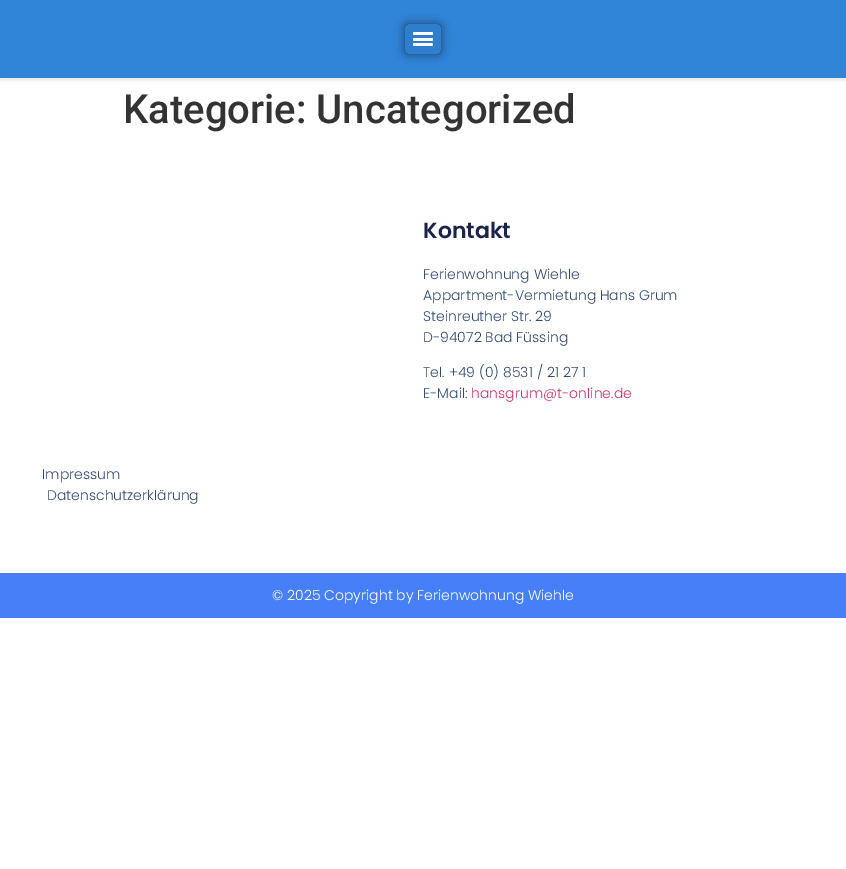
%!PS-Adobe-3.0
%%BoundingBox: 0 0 846 869
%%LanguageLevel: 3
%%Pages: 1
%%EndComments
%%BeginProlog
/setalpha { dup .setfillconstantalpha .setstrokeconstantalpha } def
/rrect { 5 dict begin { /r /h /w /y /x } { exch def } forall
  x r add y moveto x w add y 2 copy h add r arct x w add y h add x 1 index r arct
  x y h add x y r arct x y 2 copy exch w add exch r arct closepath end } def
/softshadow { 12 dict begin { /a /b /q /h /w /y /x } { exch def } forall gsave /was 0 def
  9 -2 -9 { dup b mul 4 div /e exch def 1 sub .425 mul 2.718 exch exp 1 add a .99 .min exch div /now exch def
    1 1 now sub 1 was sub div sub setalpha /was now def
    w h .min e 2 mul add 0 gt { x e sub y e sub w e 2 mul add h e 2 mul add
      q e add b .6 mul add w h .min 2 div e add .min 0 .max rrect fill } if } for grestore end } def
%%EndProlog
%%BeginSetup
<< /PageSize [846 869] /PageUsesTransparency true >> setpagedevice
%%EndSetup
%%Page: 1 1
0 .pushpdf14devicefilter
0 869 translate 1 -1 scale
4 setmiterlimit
1 setgray
0 0 846 869 rectfill
0 setgray
0 2 846 78 0 2 0.1 softshadow
0.188 0.522 0.847 setrgbcolor
0 0 846 78 rectfill
gsave
newpath 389 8 moveto 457 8 lineto 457 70 lineto 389 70 lineto closepath 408 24 moveto 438 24 lineto 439.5 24 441 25.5 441 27 curveto 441 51 lineto 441 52.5 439.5 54 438 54 curveto 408 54 lineto 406.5 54 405 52.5 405 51 curveto 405 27 lineto 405 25.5 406.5 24 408 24 curveto closepath eoclip newpath
0 setgray
405 24 36 30 3 5 0.5 softshadow
grestore
0.05 setalpha
0 setgray
405 24 36 30 rectfill
1 setalpha
0.992 setgray
413 38 20 3 1.5 rrect fill
413 32 20 3 1.5 rrect fill
413 43 20 3 1.5 rrect fill
0.275 0.498 0.969 setrgbcolor
0 573 846 45 rectfill
/Roboto-Medium [40 0 0 -40 0 0] selectfont
0.2 setgray
123 123 moveto (Kategorie: Uncategorized) show
/Poppins-SemiBold [22 0 0 -22 0 0] selectfont
0.11 0.141 0.294 setrgbcolor
423 238 moveto (Kontakt) show
/Poppins-Light [14 0 0 -14 0 0] selectfont
0.196 0.29 0.427 setrgbcolor
423 279 moveto (Ferienwohnung Wiehle) show
423 300 moveto (Appartment-Vermietung Hans Grum) show
423 321 moveto (Steinreuther Str. 29) show
423 342 moveto (D-94072 Bad Füssing) show
423 377 moveto (Tel. +49 \(0\) 8531 / 21 27 1) show
423 398 moveto (E-Mail:) show
0.8 0.2 0.4 setrgbcolor
471 398 moveto (hansgrum@t-online.de) show
0.196 0.29 0.427 setrgbcolor
42 479 moveto (Impressum) show
47 500 moveto (Datenschutzerklärung) show
1 setgray
272 600 moveto (© 2025 Copyright by Ferienwohnung Wiehle) show
.poppdf14devicefilter showpage
%%EOF
